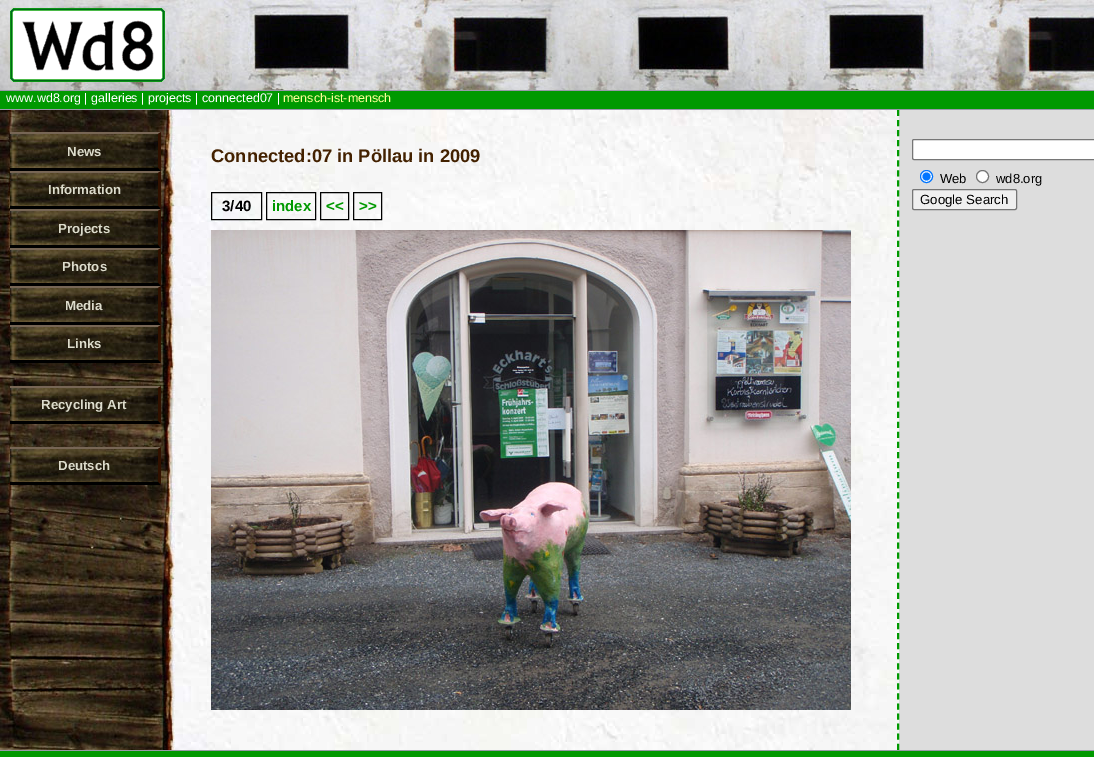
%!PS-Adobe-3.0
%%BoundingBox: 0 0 1094 757
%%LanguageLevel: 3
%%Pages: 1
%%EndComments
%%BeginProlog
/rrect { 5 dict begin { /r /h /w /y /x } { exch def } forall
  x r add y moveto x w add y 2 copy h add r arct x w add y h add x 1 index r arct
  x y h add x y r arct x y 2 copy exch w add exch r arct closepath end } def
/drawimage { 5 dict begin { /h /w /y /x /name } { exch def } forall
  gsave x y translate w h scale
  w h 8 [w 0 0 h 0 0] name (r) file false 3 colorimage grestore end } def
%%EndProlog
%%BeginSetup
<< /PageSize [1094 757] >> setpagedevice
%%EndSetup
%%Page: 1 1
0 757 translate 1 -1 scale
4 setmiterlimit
0 0.6 0 setrgbcolor
0 0 1094 757 rectfill
(images/1.raw) 0 0 1094 90 drawimage
(images/2.raw) 10 8 155 74 drawimage
0.6 0.6 0.667 setrgbcolor
0 90 1094 1 rectfill
0 109 1094 1 rectfill
0.867 setgray
899 110 195 640 rectfill
(images/3.raw) 0 110 175 640 drawimage
(images/4.raw) 10 132 151 39 drawimage
0.467 0.4 0.333 setrgbcolor
newpath 10 132 moveto 161 132 lineto 158 134 lineto 10 134 lineto closepath fill
0.196 0.067 0 setrgbcolor
newpath 161 132 moveto 161 171 lineto 158 168 lineto 158 134 lineto closepath fill
0 setgray
newpath 161 171 moveto 10 171 lineto 10 168 lineto 158 168 lineto closepath fill
(images/5.raw) 10 171 151 38 drawimage
0.467 0.4 0.333 setrgbcolor
newpath 10 171 moveto 161 171 lineto 158 173 lineto 10 173 lineto closepath fill
0.196 0.067 0 setrgbcolor
newpath 161 171 moveto 161 209 lineto 158 206 lineto 158 173 lineto closepath fill
0 setgray
newpath 161 209 moveto 10 209 lineto 10 206 lineto 158 206 lineto closepath fill
(images/4.raw) 10 209 151 39 drawimage
0.467 0.4 0.333 setrgbcolor
newpath 10 209 moveto 161 209 lineto 158 211 lineto 10 211 lineto closepath fill
0.196 0.067 0 setrgbcolor
newpath 161 209 moveto 161 248 lineto 158 245 lineto 158 211 lineto closepath fill
0 setgray
newpath 161 248 moveto 10 248 lineto 10 245 lineto 158 245 lineto closepath fill
(images/5.raw) 10 248 151 38 drawimage
0.467 0.4 0.333 setrgbcolor
newpath 10 248 moveto 161 248 lineto 158 250 lineto 10 250 lineto closepath fill
0.196 0.067 0 setrgbcolor
newpath 161 248 moveto 161 286 lineto 158 283 lineto 158 250 lineto closepath fill
0 setgray
newpath 161 286 moveto 10 286 lineto 10 283 lineto 158 283 lineto closepath fill
(images/4.raw) 10 286 151 39 drawimage
0.467 0.4 0.333 setrgbcolor
newpath 10 286 moveto 161 286 lineto 158 288 lineto 10 288 lineto closepath fill
0.196 0.067 0 setrgbcolor
newpath 161 286 moveto 161 325 lineto 158 322 lineto 158 288 lineto closepath fill
0 setgray
newpath 161 325 moveto 10 325 lineto 10 322 lineto 158 322 lineto closepath fill
(images/5.raw) 10 325 151 38 drawimage
0.467 0.4 0.333 setrgbcolor
newpath 10 325 moveto 161 325 lineto 158 327 lineto 10 327 lineto closepath fill
0.196 0.067 0 setrgbcolor
newpath 161 325 moveto 161 363 lineto 158 360 lineto 158 327 lineto closepath fill
0 setgray
newpath 161 363 moveto 10 363 lineto 10 360 lineto 158 360 lineto closepath fill
(images/5.raw) 10 386 151 38 drawimage
0.467 0.4 0.333 setrgbcolor
newpath 10 386 moveto 161 386 lineto 158 388 lineto 10 388 lineto closepath fill
0.196 0.067 0 setrgbcolor
newpath 161 386 moveto 161 424 lineto 158 421 lineto 158 388 lineto closepath fill
0 setgray
newpath 161 424 moveto 10 424 lineto 10 421 lineto 158 421 lineto closepath fill
(images/5.raw) 10 447 151 38 drawimage
0.467 0.4 0.333 setrgbcolor
newpath 10 447 moveto 161 447 lineto 158 449 lineto 10 449 lineto closepath fill
0.196 0.067 0 setrgbcolor
newpath 161 447 moveto 161 485 lineto 158 482 lineto 158 449 lineto closepath fill
0 setgray
newpath 161 485 moveto 10 485 lineto 10 482 lineto 158 482 lineto closepath fill
(images/6.raw) 175 110 724 640 drawimage
0 0.6 0 setrgbcolor
2 setlinewidth
[6 4.06] 0 setdash
newpath 898 110 moveto 898 750 lineto stroke
0 setgray
1 setlinewidth
[] 0 setdash
211.5 192.5 50 27 rectstroke
266.5 192.5 49 27 rectstroke
320.5 192.5 28 27 rectstroke
353.5 192.5 28 27 rectstroke
(images/7.raw) 211 230 640 480 drawimage
1 setgray
912.5 139.5 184 20 1.5 rrect gsave fill grestore
0.463 setgray
stroke
1 setgray
newpath 926.5 176.5 6 0 360 arc closepath gsave fill grestore
0 0.459 1 setrgbcolor
stroke
newpath 926.5 176.5 4 0 360 arc closepath fill
1 setgray
newpath 982.5 176.5 6 0 360 arc closepath gsave fill grestore
0.463 setgray
stroke
0.937 setgray
912.5 189.5 104 20 1.5 rrect gsave fill grestore
0.463 setgray
stroke
0.6 0.6 0.667 setrgbcolor
0 750 1094 1 rectfill
/LiberationSans-Regular [12.5 0 0 -12.5 0 0] selectfont
1 setgray
6 102 moveto (www.wd8.org | galleries | projects | connected07 |) show
1 1 0.6 setrgbcolor
283 102 moveto (mensch-ist-mensch) show
/LiberationSans-Bold [13.25 0 0 -13.25 0 0] selectfont
0.867 0.863 0.8 setrgbcolor
67 156 moveto (News) show
48 194 moveto (Information) show
58 233 moveto (Projects) show
62 271 moveto (Photos) show
65 310 moveto (Media) show
67 348 moveto (Links) show
41 409 moveto (Recycling Art) show
58 470 moveto (Deutsch) show
/LiberationSans-Bold [18.3 0 0 -18.3 0 0] selectfont
0.263 0.129 0 setrgbcolor
211 162 moveto (Connected:07 in Pöllau in 2009) show
/LiberationSans-Bold [15 0 0 -15 0 0] selectfont
0 setgray
222 211 moveto (3/40) show
0 0.6 0 setrgbcolor
272 211 moveto (index) show
326 211 moveto (<<) show
359 211 moveto (>>) show
/LiberationSans-Regular [13 0 0 -13 0 0] selectfont
0 setgray
940 183 moveto (Web) show
996 183 moveto (wd8.org) show
/LiberationSans-Regular [13.25 0 0 -13.25 0 0] selectfont
920 204 moveto (Google Search) show
showpage
%%EOF
